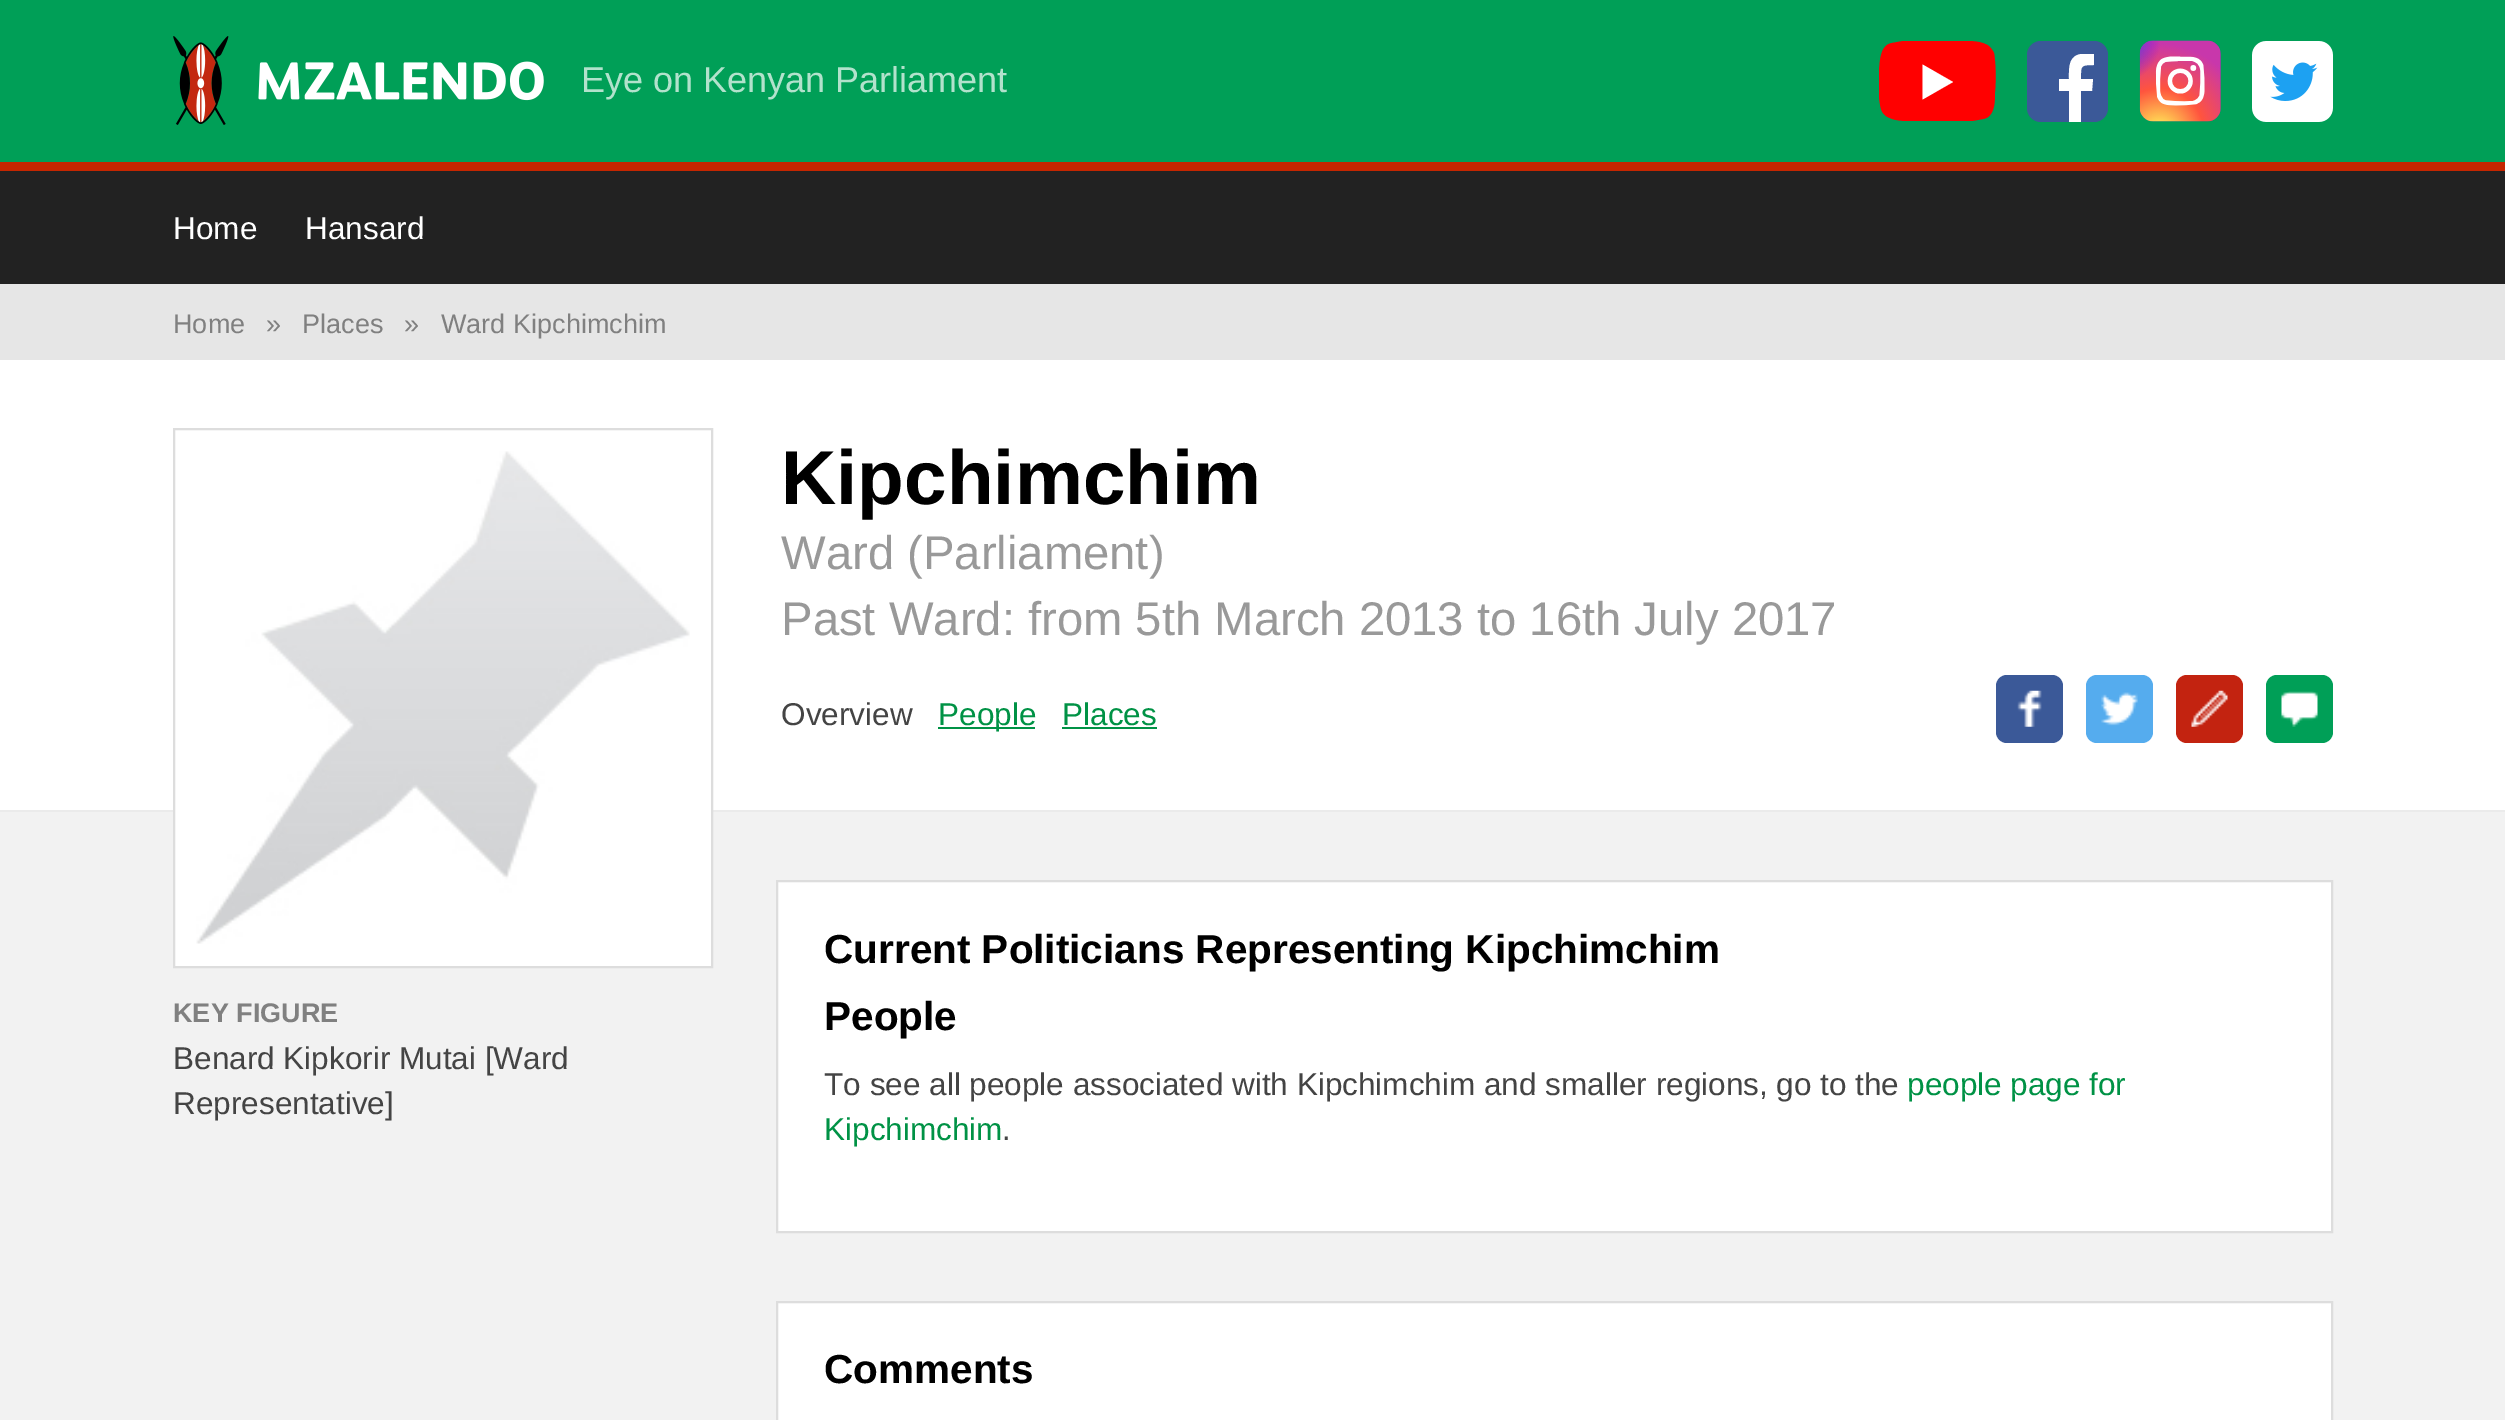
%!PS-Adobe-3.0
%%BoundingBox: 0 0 2505 1420
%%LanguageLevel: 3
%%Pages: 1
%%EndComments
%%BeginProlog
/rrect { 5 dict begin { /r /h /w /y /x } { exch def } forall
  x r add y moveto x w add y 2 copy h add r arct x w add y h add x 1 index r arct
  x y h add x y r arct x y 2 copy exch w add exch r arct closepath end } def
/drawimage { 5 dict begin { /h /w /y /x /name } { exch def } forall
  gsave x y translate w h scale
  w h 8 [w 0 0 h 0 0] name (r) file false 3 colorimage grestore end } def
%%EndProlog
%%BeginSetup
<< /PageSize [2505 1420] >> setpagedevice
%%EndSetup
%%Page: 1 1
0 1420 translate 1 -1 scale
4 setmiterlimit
0 0.624 0.341 setrgbcolor
0 0 2505 1420 rectfill
(images/1.raw) 173 36 371 89 drawimage
gsave
1879 41 117 81 rectclip
1 0 0 setrgbcolor
newpath 1994 53 moveto 1992 49 1989 45 1985 44 curveto 1979 41 1971 41 1965 41 curveto 1931 41 lineto 1903 41 lineto 1892 43 lineto 1880 45 1880 61 1879 70 curveto 1878 83 1878 97 1881 109 curveto 1882 113 1886 117 1890 118 curveto 1896 121 1904 121 1910 121 curveto 1943 121 lineto 1972 121 lineto 1983 119 lineto 1995 117 1995 101 1995 92 curveto 1996 79 1996 65 1994 53 curveto closepath fill
grestore
1 setgray
newpath 1953 82 moveto 1922.5 64.5 lineto 1922.5 99.5 lineto closepath fill
0.231 0.349 0.596 setrgbcolor
2027 41 81 81 14 rrect fill
1 setgray
newpath 2081 122 moveto 2069 122 lineto 2069 91 lineto 2059 91 lineto 2059 79 lineto 2069 79 lineto 2069 69 2068 56 2081 54 curveto 2094 54 lineto 2094 65 lineto 2080 65 2081 66 2081 79 curveto 2093 79 lineto 2092 91 lineto 2081 91 lineto closepath fill
(images/2.raw) 2139 40 82 82 drawimage
(images/3.raw) 2252 41 81 81 drawimage
0.133 setgray
0 171 2505 113 rectfill
0.773 0.149 0 setrgbcolor
0 162 2505 9 rectfill
0.902 setgray
0 284 2505 76 rectfill
1 setgray
0 360 2505 450 rectfill
0 0.573 0.271 setrgbcolor
938 727 97 2 rectfill
1062 727 95 2 rectfill
0.231 0.349 0.596 setrgbcolor
1996 675 67 68 11 rrect fill
(images/4.raw) 2017 690 25 37 drawimage
0.333 0.675 0.933 setrgbcolor
2086 675 67 68 11 rrect fill
(images/5.raw) 2101 692 37 34 drawimage
0.765 0.137 0.063 setrgbcolor
2176 675 67 68 11 rrect fill
(images/6.raw) 2191 690 37 37 drawimage
0 0.624 0.341 setrgbcolor
2266 675 67 68 11 rrect fill
(images/7.raw) 2281 691 37 36 drawimage
0.949 setgray
0 812 2505 608 rectfill
0.922 setgray
0 810 2505 2 rectfill
1 setgray
175 810 536 156 rectfill
0.867 setgray
2 setlinewidth
174 429 538 538 rectstroke
(images/8.raw) 196 451 494 493 drawimage
1 setgray
newpath 777 881 moveto 2332 881 lineto 2332 1232 lineto 777 1232 lineto closepath gsave fill grestore
0.867 setgray
stroke
1 setgray
newpath 777 1302 moveto 2332 1302 lineto 2332 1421 lineto 777 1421 lineto closepath gsave fill grestore
0.867 setgray
stroke
/LiberationSans-Regular [36 0 0 -36 0 0] selectfont
0.698 0.886 0.8 setrgbcolor
581 92 moveto (Eye on Kenyan Parliament) show
/LiberationSans-Regular [31.5 0 0 -31.5 0 0] selectfont
1 setgray
173 239 moveto (Home) show
305 239 moveto (Hansard) show
/LiberationSans-Regular [27 0 0 -27 0 0] selectfont
0.502 setgray
173 333 moveto (Home) show
266 333 moveto (») show
302 333 moveto (Places) show
404 333 moveto (») show
441 333 moveto (Ward Kipchimchim) show
/LiberationSans-Bold [76.5 0 0 -76.5 0 0] selectfont
0 setgray
781 504 moveto (Kipchimchim) show
/LiberationSans-Regular [47.25 0 0 -47.25 0 0] selectfont
0.6 setgray
781 569 moveto (Ward \(Parliament\)) show
781 635 moveto (Past Ward: from 5th March 2013 to 16th July 2017) show
/LiberationSans-Regular [31.5 0 0 -31.5 0 0] selectfont
0.267 setgray
781 725 moveto (Overview) show
0 0.573 0.271 setrgbcolor
938 725 moveto (People) show
1062 725 moveto (Places) show
/LiberationSans-Bold [27 0 0 -27 0 0] selectfont
0.502 setgray
173 1022 moveto (KEY FIGURE) show
/LiberationSans-Regular [31.5 0 0 -31.5 0 0] selectfont
0.267 setgray
173 1069 moveto (Benard Kipkorir Mutai [Ward) show
173 1114 moveto (Representative]) show
/LiberationSans-Bold [40.5 0 0 -40.5 0 0] selectfont
0 setgray
824 963 moveto (Current Politicians Representing Kipchimchim) show
824 1030 moveto (People) show
/LiberationSans-Regular [31.5 0 0 -31.5 0 0] selectfont
0.267 setgray
824 1095 moveto (To see all people associated with Kipchimchim and smaller regions, go to the) show
0 0.573 0.271 setrgbcolor
1907 1095 moveto (people page for) show
824 1140 moveto (Kipchimchim) show
0.267 setgray
1002 1140 moveto (.) show
/LiberationSans-Bold [40.5 0 0 -40.5 0 0] selectfont
0 setgray
824 1383 moveto (Comments) show
showpage
%%EOF
